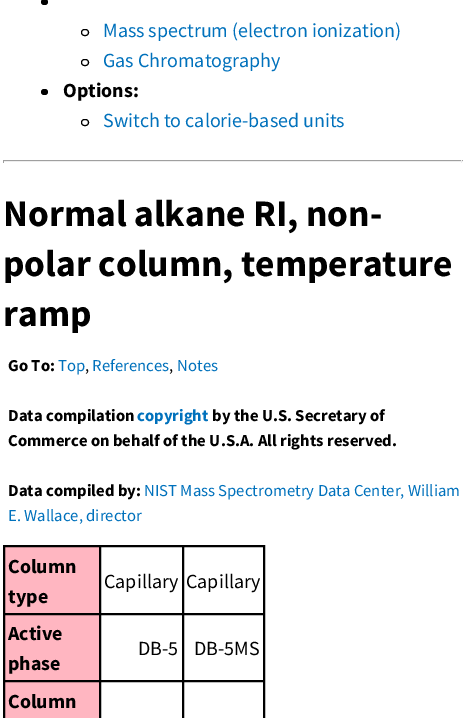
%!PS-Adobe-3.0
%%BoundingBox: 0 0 465 718
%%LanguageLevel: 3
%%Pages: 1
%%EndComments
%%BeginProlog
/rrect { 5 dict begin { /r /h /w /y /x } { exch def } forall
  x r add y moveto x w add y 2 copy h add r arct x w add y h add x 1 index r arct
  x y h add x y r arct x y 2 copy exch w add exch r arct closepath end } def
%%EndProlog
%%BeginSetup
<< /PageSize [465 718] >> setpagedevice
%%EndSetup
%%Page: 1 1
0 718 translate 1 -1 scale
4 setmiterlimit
1 setgray
0 0 465 718 rectfill
0 setgray
41 -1 7 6 3 rrect fill
81.5 29.5 7 6 3 rrect stroke
81.5 59.5 7 6 3 rrect stroke
41 89 7 6 3 rrect fill
81.5 119.5 7 6 3 rrect stroke
0.624 setgray
3 160 460 1 rectfill
0.933 setgray
461 160 1 3 rectfill
3 161 460 1 rectfill
0.624 setgray
3 160 1 3 rectfill
0 setgray
3.5 545.5 261 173 rectstroke
1 0.714 0.757 setrgbcolor
newpath 4.5 546.5 moveto 99.5 546.5 lineto 99.5 613.5 lineto 4.5 613.5 lineto closepath gsave fill grestore
0 setgray
stroke
100.5 546.5 82 67 rectstroke
183.5 546.5 80 67 rectstroke
1 0.714 0.757 setrgbcolor
newpath 4.5 614.5 moveto 99.5 614.5 lineto 99.5 680.5 lineto 4.5 680.5 lineto closepath gsave fill grestore
0 setgray
stroke
100.5 614.5 82 66 rectstroke
183.5 614.5 80 66 rectstroke
1 0.714 0.757 setrgbcolor
newpath 4.5 681.5 moveto 99.5 681.5 lineto 99.5 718.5 lineto 4.5 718.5 lineto closepath gsave fill grestore
0 setgray
stroke
100.5 681.5 82 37 rectstroke
183.5 681.5 80 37 rectstroke
/SourceSansPro-Regular [20 0 0 -20 0 0] selectfont
0 0.443 0.737 setrgbcolor
103 37 moveto (Mass spectrum \(electron ionization\)) show
103 67 moveto (Gas Chromatography) show
/SourceSansPro-Bold [20 0 0 -20 0 0] selectfont
0 setgray
63 97 moveto (Options:) show
/SourceSansPro-Regular [20 0 0 -20 0 0] selectfont
0 0.443 0.737 setrgbcolor
103 127 moveto (Switch to calorie-based units) show
/SourceSansPro-Bold [37.5 0 0 -37.5 0 0] selectfont
0 setgray
3 226 moveto (Normal alkane RI, non-) show
3 276 moveto (polar column, temperature) show
3 326 moveto (ramp) show
/SourceSansPro-Bold [16.7 0 0 -16.7 0 0] selectfont
8 371 moveto (Go To:) show
/SourceSansPro-Regular [16.7 0 0 -16.7 0 0] selectfont
0 0.443 0.737 setrgbcolor
58 371 moveto (Top) show
0 setgray
85 371 moveto (,) show
0 0.443 0.737 setrgbcolor
92 371 moveto (References) show
0 setgray
169 371 moveto (,) show
0 0.443 0.737 setrgbcolor
177 371 moveto (Notes) show
/SourceSansPro-Bold [16.7 0 0 -16.7 0 0] selectfont
0 setgray
8 421 moveto (Data compilation) show
0 0.443 0.737 setrgbcolor
137 421 moveto (copyright) show
0 setgray
212 421 moveto (by the U.S. Secretary of) show
8 446 moveto (Commerce on behalf of the U.S.A. All rights reserved.) show
8 496 moveto (Data compiled by:) show
/SourceSansPro-Regular [16.7 0 0 -16.7 0 0] selectfont
0 0.443 0.737 setrgbcolor
144 496 moveto (NIST Mass Spectrometry Data Center, William) show
8 521 moveto (E. Wallace, director) show
/SourceSansPro-Bold [20 0 0 -20 0 0] selectfont
0 setgray
8 573 moveto (Column) show
8 603 moveto (type) show
/SourceSansPro-Regular [20 0 0 -20 0 0] selectfont
104 588 moveto (Capillary) show
186 588 moveto (Capillary) show
/SourceSansPro-Bold [20 0 0 -20 0 0] selectfont
8 640 moveto (Active) show
8 670 moveto (phase) show
/SourceSansPro-Regular [20 0 0 -20 0 0] selectfont
138 655 moveto (DB-5) show
194 655 moveto (DB-5MS) show
/SourceSansPro-Bold [20 0 0 -20 0 0] selectfont
8 708 moveto (Column) show
showpage
%%EOF
